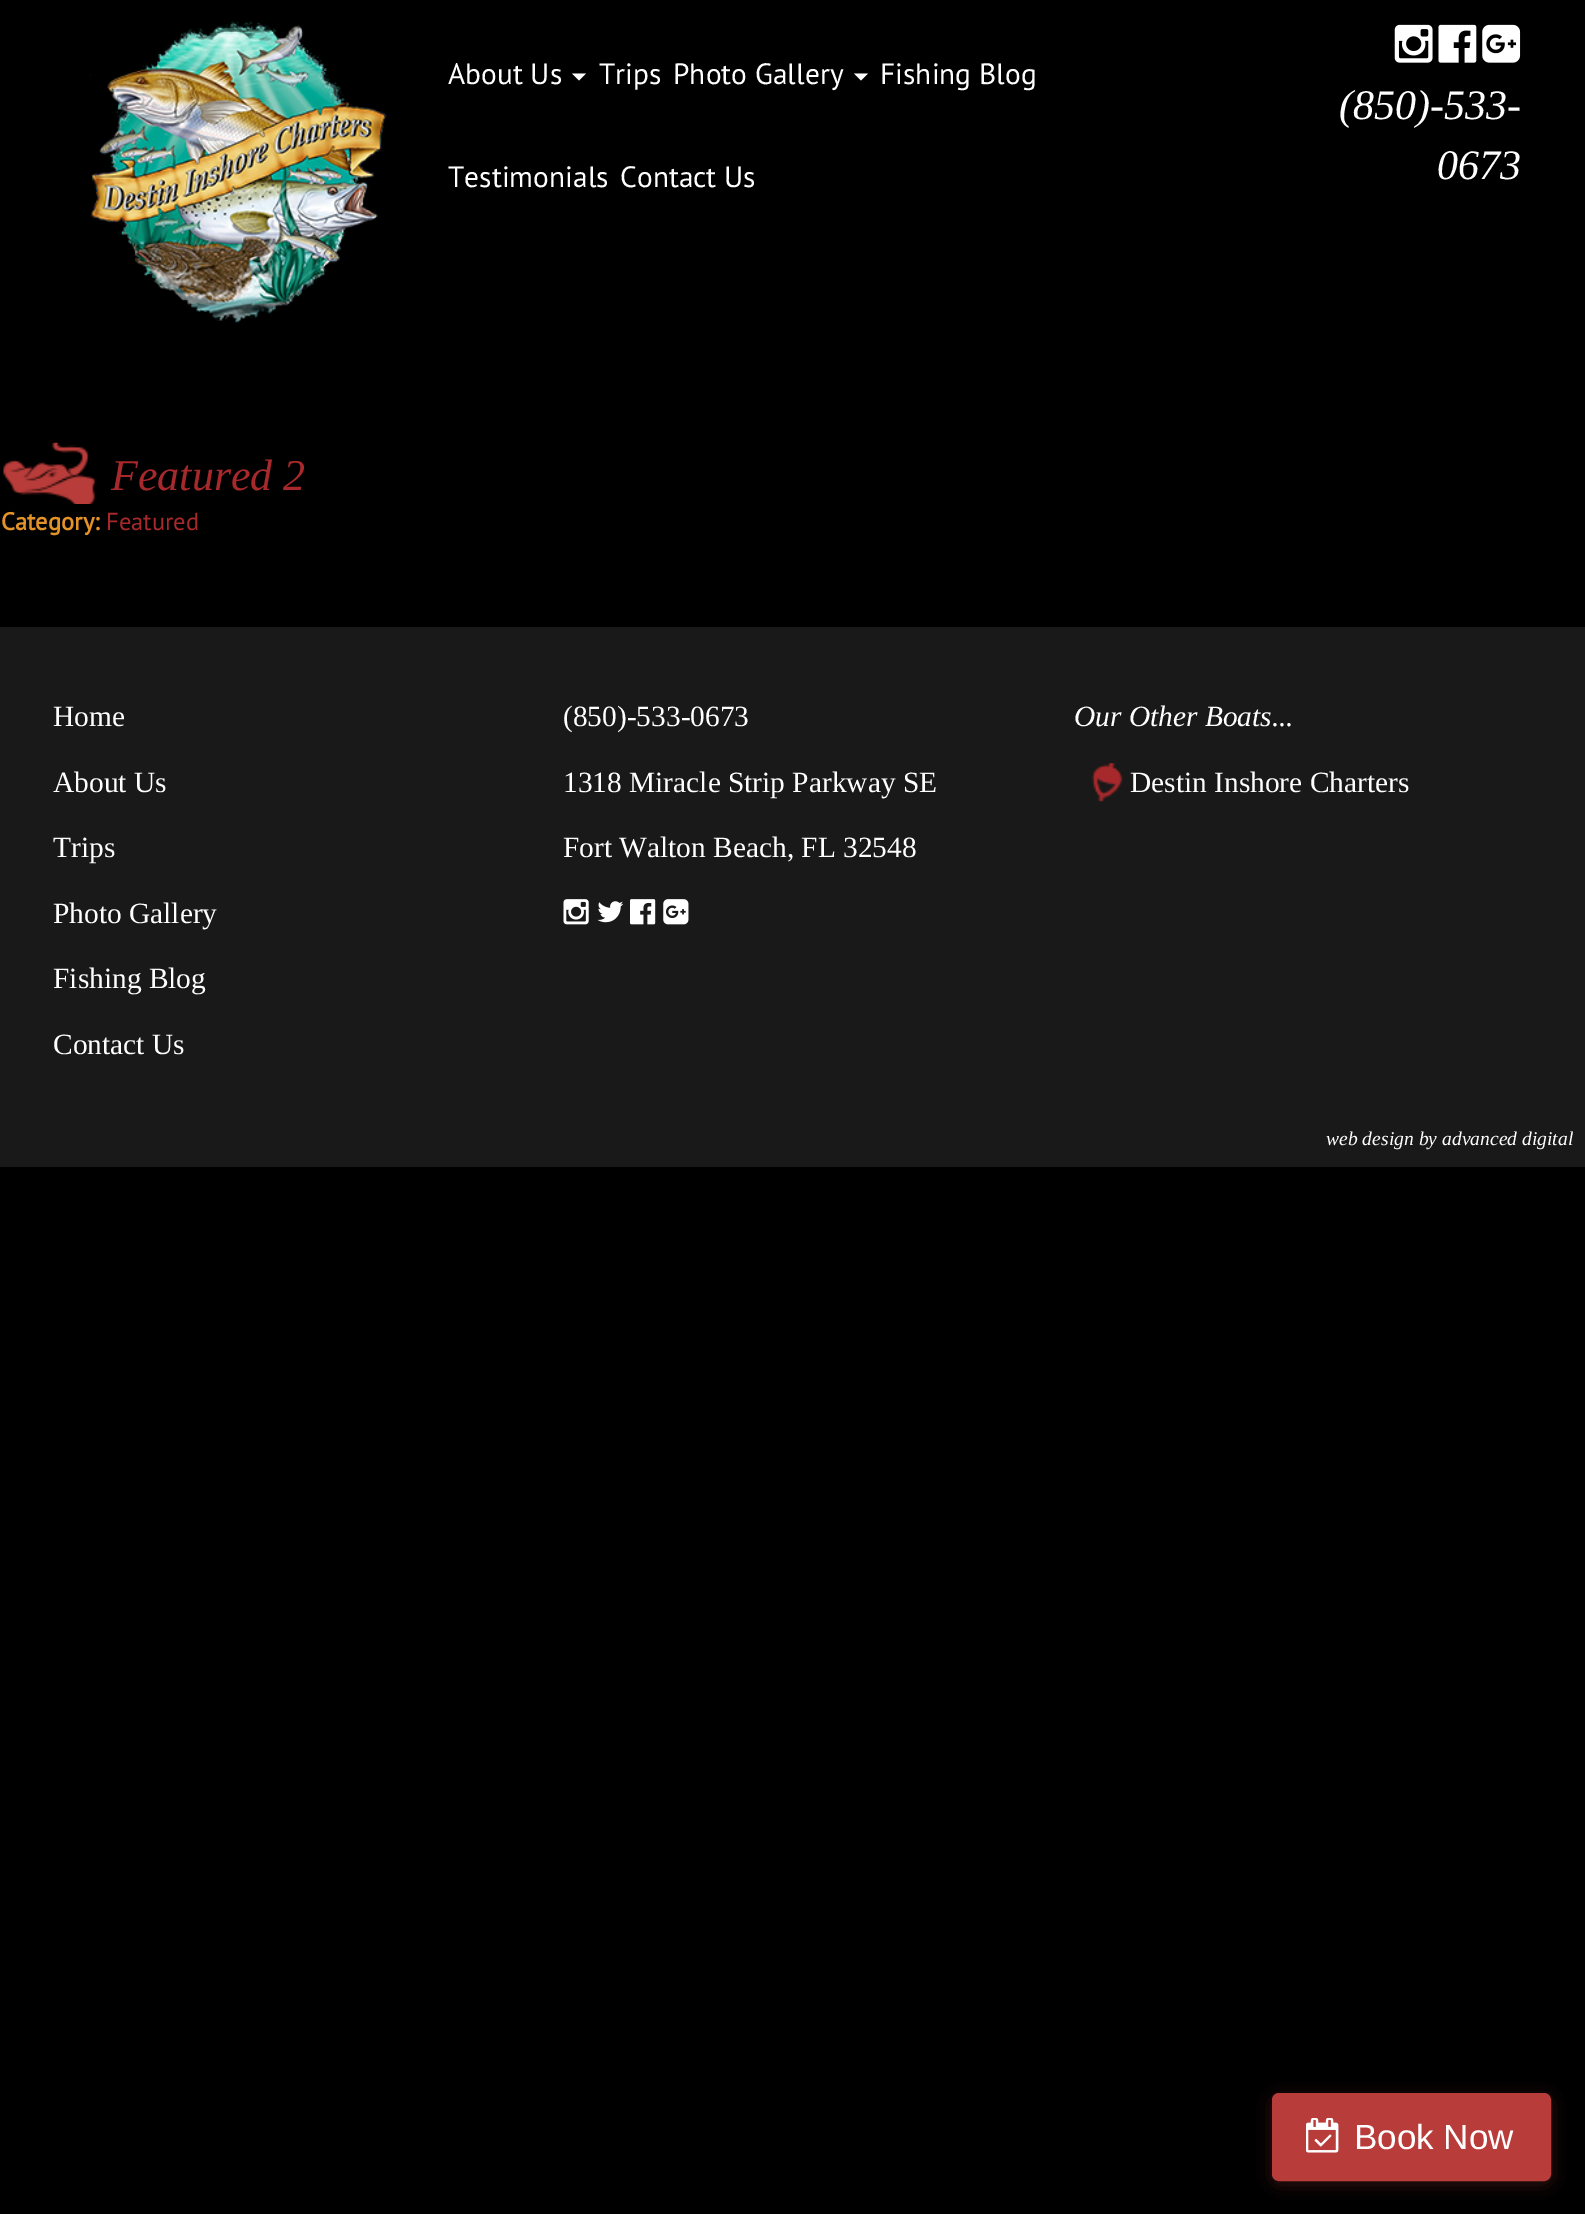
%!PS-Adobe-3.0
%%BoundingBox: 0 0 1585 2214
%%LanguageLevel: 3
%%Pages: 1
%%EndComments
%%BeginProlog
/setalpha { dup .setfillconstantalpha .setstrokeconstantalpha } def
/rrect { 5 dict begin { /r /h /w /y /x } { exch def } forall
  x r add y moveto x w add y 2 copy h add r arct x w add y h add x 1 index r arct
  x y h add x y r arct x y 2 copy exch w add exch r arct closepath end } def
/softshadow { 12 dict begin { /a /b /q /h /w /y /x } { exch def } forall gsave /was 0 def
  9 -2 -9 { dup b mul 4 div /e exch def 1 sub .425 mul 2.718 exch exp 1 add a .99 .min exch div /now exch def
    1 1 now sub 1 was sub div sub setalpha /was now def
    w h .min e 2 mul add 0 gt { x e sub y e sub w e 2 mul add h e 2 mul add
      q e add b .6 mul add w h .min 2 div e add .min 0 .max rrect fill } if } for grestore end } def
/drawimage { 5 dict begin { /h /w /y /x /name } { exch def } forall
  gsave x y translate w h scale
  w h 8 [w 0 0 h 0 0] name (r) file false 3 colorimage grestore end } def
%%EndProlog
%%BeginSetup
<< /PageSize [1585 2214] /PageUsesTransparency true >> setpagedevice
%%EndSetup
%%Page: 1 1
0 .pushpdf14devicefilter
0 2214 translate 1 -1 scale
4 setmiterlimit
0 setgray
0 0 1585 2214 rectfill
(images/1.raw) 89 21 298 302 drawimage
1 setgray
newpath 572 73.5 moveto 586 73.5 lineto 579 80.5 lineto closepath fill
newpath 854 73.5 moveto 868 73.5 lineto 861 80.5 lineto closepath fill
(images/2.raw) 1394 24 39 39 drawimage
(images/3.raw) 1438 24 39 39 drawimage
(images/4.raw) 1482 24 39 39 drawimage
(images/5.raw) 3 442 92 62 drawimage
0.098 setgray
0 627 1585 540 rectfill
(images/6.raw) 563 899 26 26 drawimage
(images/7.raw) 597 901 27 22 drawimage
(images/8.raw) 630 899 26 26 drawimage
(images/9.raw) 663 899 26 26 drawimage
(images/10.raw) 1091 763 32 39 drawimage
0.722 0.235 0.227 setrgbcolor
1272 2097 279 87 7 9 0.3 softshadow
1273 2094 277 86 6 rrect gsave fill grestore
2 setlinewidth
stroke
(images/11.raw) 1306 2118 33 35 drawimage
/PTSans-Regular [29.4 0 0 -29.4 0 0] selectfont
1 setgray
448 84 moveto (About Us) show
599 84 moveto (Trips) show
673 84 moveto (Photo Gallery) show
880 84 moveto (Fishing Blog) show
448 187 moveto (Testimonials) show
620 187 moveto (Contact Us) show
/LiberationSerif-Italic [42 0 0 -42 0 0] selectfont
1339 119 moveto (\(850\)-533-) show
1437 179 moveto (0673) show
/LiberationSerif-Italic [44 0 0 -44 0 0] selectfont
0.655 0.161 0.173 setrgbcolor
111 490 moveto (Featured 2) show
/PTSans-Bold [24.5 0 0 -24.5 0 0] selectfont
0.894 0.576 0.161 setrgbcolor
1 530 moveto (Category:) show
/PTSans-Regular [24.5 0 0 -24.5 0 0] selectfont
0.655 0.161 0.173 setrgbcolor
106 530 moveto (Featured) show
/LiberationSerif-Regular [29.4 0 0 -29.4 0 0] selectfont
1 setgray
53 726 moveto (Home) show
53 792 moveto (About Us) show
53 857 moveto (Trips) show
53 923 moveto (Photo Gallery) show
53 988 moveto (Fishing Blog) show
53 1054 moveto (Contact Us) show
563 726 moveto (\(850\)-533-0673) show
563 792 moveto (1318 Miracle Strip Parkway SE) show
563 857 moveto (Fort Walton Beach, FL 32548) show
/LiberationSerif-Italic [29.4 0 0 -29.4 0 0] selectfont
1074 726 moveto (Our Other Boats...) show
/LiberationSerif-Regular [29.4 0 0 -29.4 0 0] selectfont
1130 792 moveto (Destin Inshore Charters) show
/LiberationSerif-Italic [19.6 0 0 -19.6 0 0] selectfont
1326 1145 moveto (web design by advanced digital) show
/LiberationSans-Regular [35 0 0 -35 0 0] selectfont
1354 2149 moveto (Book Now) show
.poppdf14devicefilter showpage
%%EOF
